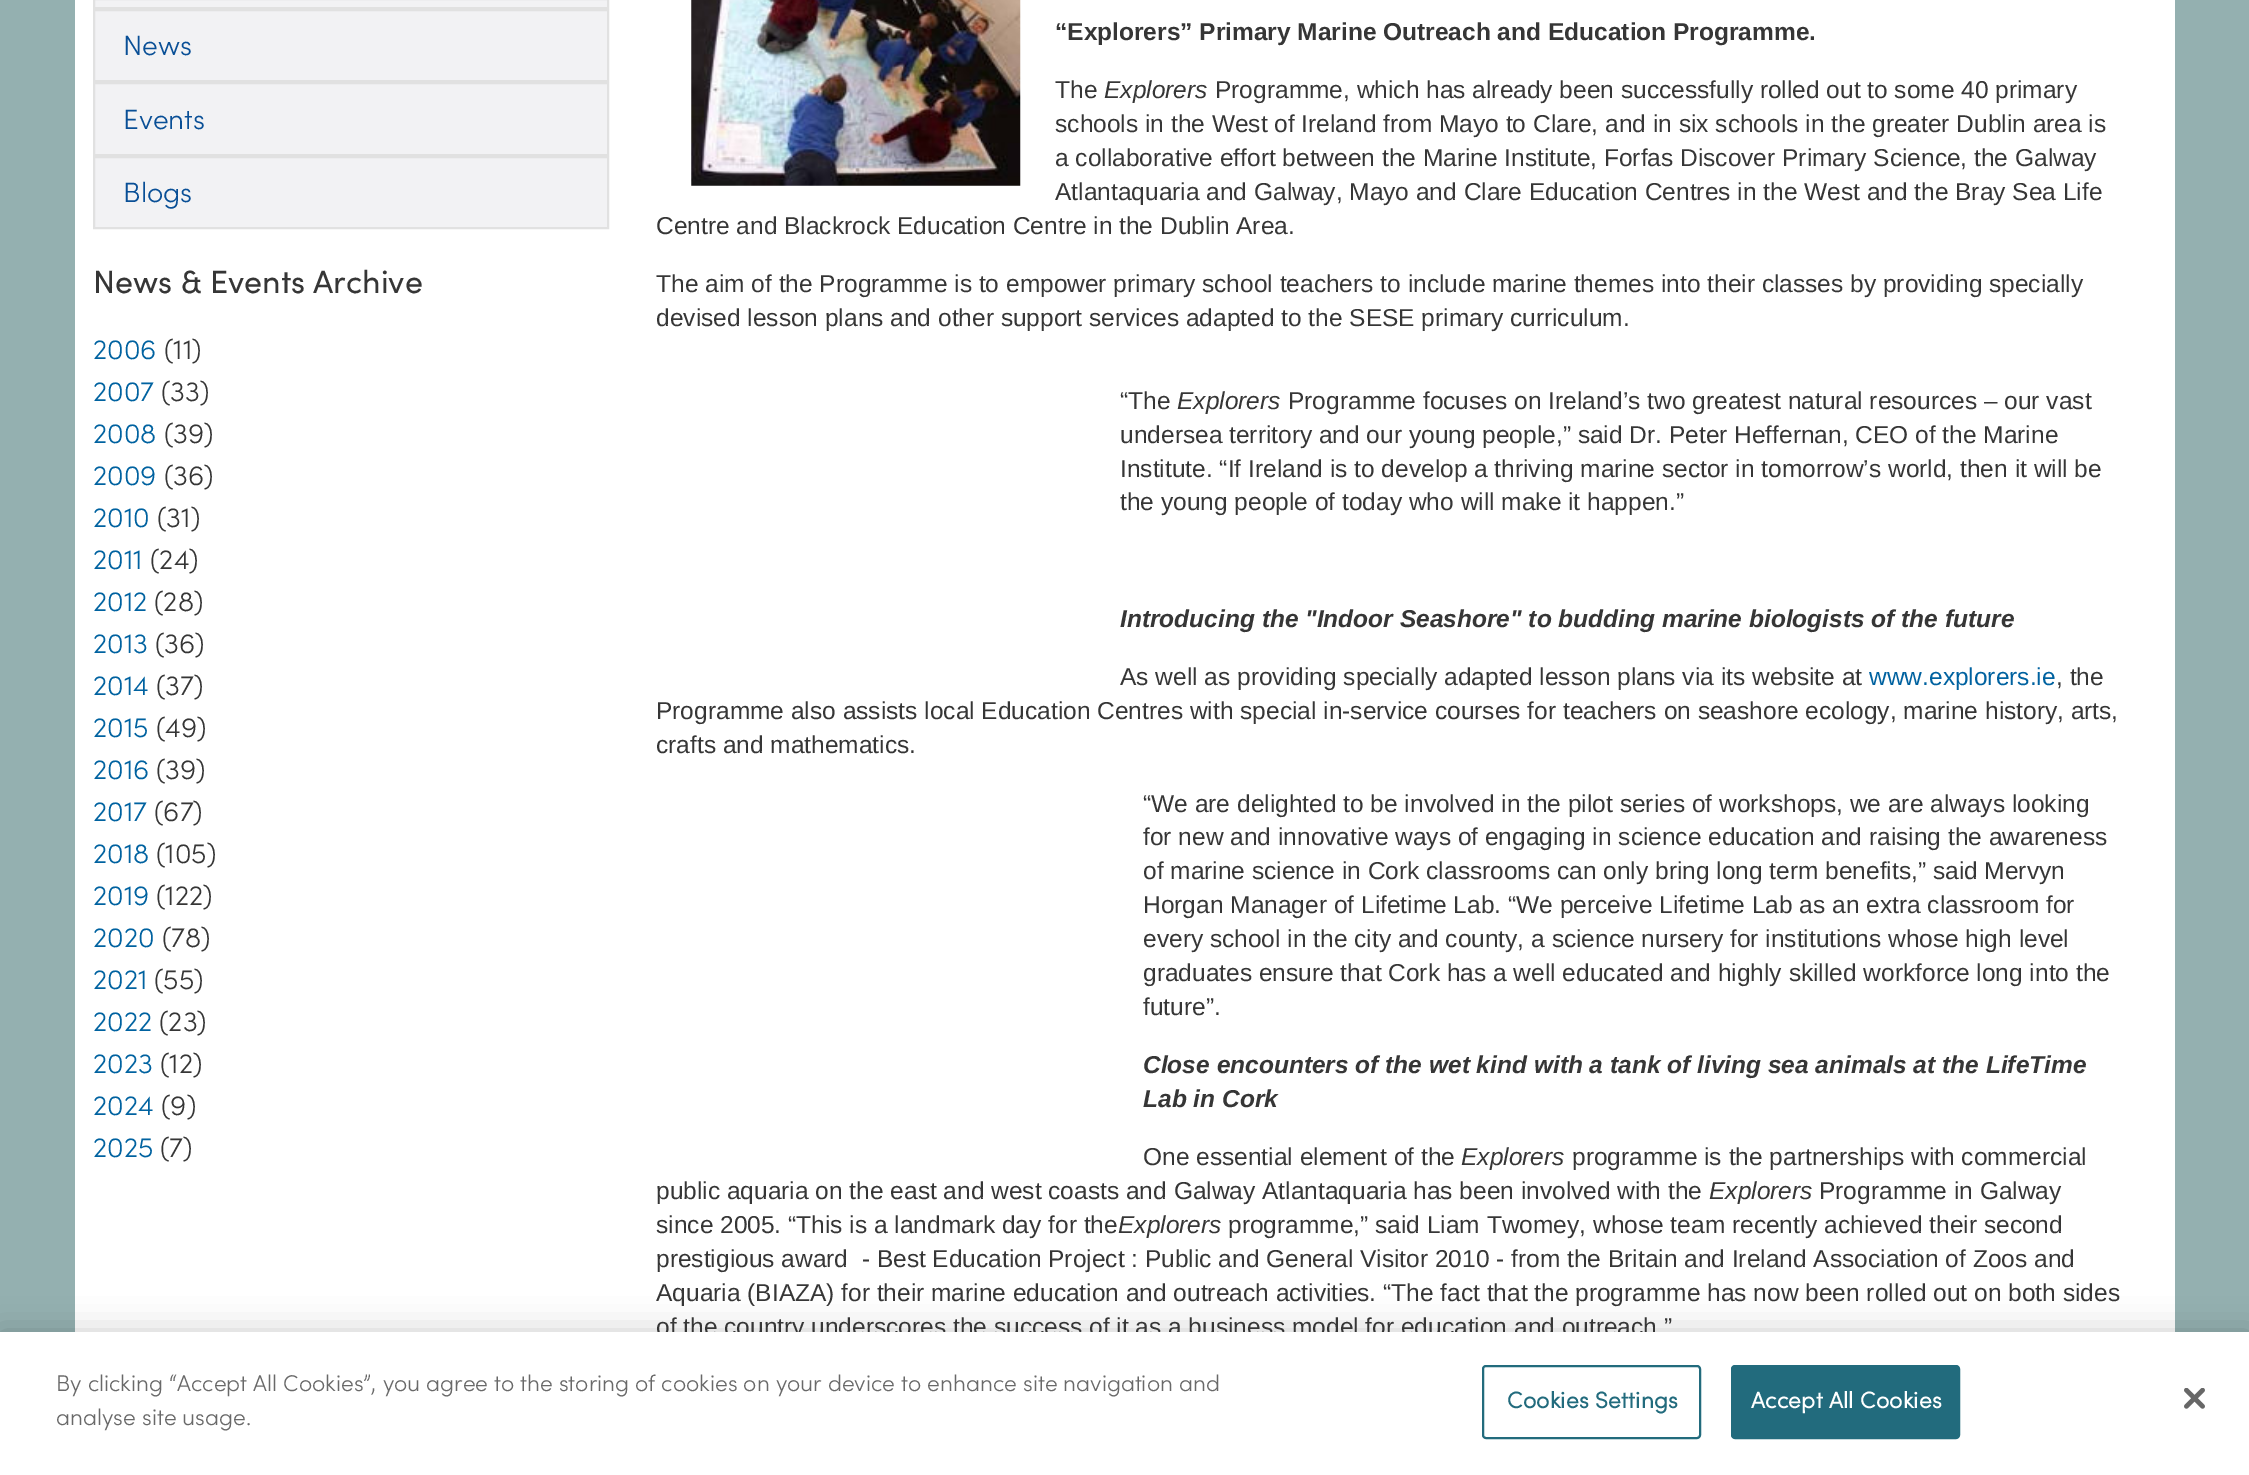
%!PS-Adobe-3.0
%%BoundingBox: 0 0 2249 1475
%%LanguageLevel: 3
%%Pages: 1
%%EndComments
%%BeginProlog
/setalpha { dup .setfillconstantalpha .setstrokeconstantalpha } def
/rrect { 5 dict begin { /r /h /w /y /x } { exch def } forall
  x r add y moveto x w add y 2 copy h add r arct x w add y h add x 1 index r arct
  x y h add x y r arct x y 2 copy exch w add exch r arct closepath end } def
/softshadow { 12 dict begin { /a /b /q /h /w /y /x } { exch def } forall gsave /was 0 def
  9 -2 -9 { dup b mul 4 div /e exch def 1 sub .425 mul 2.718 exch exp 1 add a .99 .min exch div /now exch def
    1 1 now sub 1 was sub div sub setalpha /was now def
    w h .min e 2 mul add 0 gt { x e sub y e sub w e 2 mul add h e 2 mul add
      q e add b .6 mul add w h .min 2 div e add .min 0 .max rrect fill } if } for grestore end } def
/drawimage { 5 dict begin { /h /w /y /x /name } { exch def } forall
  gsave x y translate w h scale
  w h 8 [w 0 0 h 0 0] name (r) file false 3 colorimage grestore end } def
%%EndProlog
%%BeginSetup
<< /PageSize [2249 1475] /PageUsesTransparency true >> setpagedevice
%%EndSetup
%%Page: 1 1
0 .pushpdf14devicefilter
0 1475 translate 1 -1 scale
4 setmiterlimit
0.58 0.69 0.69 setrgbcolor
0 0 2249 1475 rectfill
1 setgray
75 0 2100 1332 rectfill
0.949 0.949 0.957 setrgbcolor
newpath 94 -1 moveto 608 -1 lineto 608 8 lineto 94 8 lineto closepath gsave fill grestore
0.882 setgray
2 setlinewidth
stroke
0.949 0.949 0.957 setrgbcolor
newpath 94 10 moveto 608 10 lineto 608 81 lineto 94 81 lineto closepath gsave fill grestore
0.882 setgray
stroke
0.949 0.949 0.957 setrgbcolor
newpath 94 83 moveto 608 83 lineto 608 155 lineto 94 155 lineto closepath gsave fill grestore
0.882 setgray
stroke
0.949 0.949 0.957 setrgbcolor
newpath 94 157 moveto 608 157 lineto 608 228 lineto 94 228 lineto closepath gsave fill grestore
0.882 setgray
stroke
(images/1.raw) 691 0 330 186 drawimage
0 setgray
0 1332 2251 143 0 16 0.2 softshadow
/Sofia-Light [28 0 0 -28 0 0] selectfont
0.035 0.31 0.588 setrgbcolor
123 55 moveto (News) show
123 129 moveto (Events) show
123 202 moveto (Blogs) show
/Sofia-Regular [32.25 0 0 -32.25 0 0] selectfont
0.212 setgray
93 293 moveto (News & Events Archive) show
/Sofia-Light [28 0 0 -28 0 0] selectfont
0 0.384 0.627 setrgbcolor
93 359 moveto (2006) show
0.212 setgray
164 359 moveto (\(11\)) show
0 0.384 0.627 setrgbcolor
93 401 moveto (2007) show
0.212 setgray
161 401 moveto (\(33\)) show
0 0.384 0.627 setrgbcolor
93 443 moveto (2008) show
0.212 setgray
164 443 moveto (\(39\)) show
0 0.384 0.627 setrgbcolor
93 485 moveto (2009) show
0.212 setgray
164 485 moveto (\(36\)) show
0 0.384 0.627 setrgbcolor
93 527 moveto (2010) show
0.212 setgray
157 527 moveto (\(31\)) show
0 0.384 0.627 setrgbcolor
93 569 moveto (2011) show
0.212 setgray
150 569 moveto (\(24\)) show
0 0.384 0.627 setrgbcolor
93 611 moveto (2012) show
0.212 setgray
154 611 moveto (\(28\)) show
0 0.384 0.627 setrgbcolor
93 653 moveto (2013) show
0.212 setgray
155 653 moveto (\(36\)) show
0 0.384 0.627 setrgbcolor
93 695 moveto (2014) show
0.212 setgray
156 695 moveto (\(37\)) show
0 0.384 0.627 setrgbcolor
93 737 moveto (2015) show
0.212 setgray
156 737 moveto (\(49\)) show
0 0.384 0.627 setrgbcolor
93 779 moveto (2016) show
0.212 setgray
156 779 moveto (\(39\)) show
0 0.384 0.627 setrgbcolor
93 821 moveto (2017) show
0.212 setgray
154 821 moveto (\(67\)) show
0 0.384 0.627 setrgbcolor
93 863 moveto (2018) show
0.212 setgray
156 863 moveto (\(105\)) show
0 0.384 0.627 setrgbcolor
93 905 moveto (2019) show
0.212 setgray
156 905 moveto (\(122\)) show
0 0.384 0.627 setrgbcolor
93 947 moveto (2020) show
0.212 setgray
162 947 moveto (\(78\)) show
0 0.384 0.627 setrgbcolor
93 989 moveto (2021) show
0.212 setgray
154 989 moveto (\(55\)) show
0 0.384 0.627 setrgbcolor
93 1031 moveto (2022) show
0.212 setgray
159 1031 moveto (\(23\)) show
0 0.384 0.627 setrgbcolor
93 1073 moveto (2023) show
0.212 setgray
160 1073 moveto (\(12\)) show
0 0.384 0.627 setrgbcolor
93 1115 moveto (2024) show
0.212 setgray
161 1115 moveto (\(9\)) show
0 0.384 0.627 setrgbcolor
93 1157 moveto (2025) show
0.212 setgray
160 1157 moveto (\(7\)) show
/LiberationSans-Bold [24.5 0 0 -24.5 0 0] selectfont
1055 40 moveto (“Explorers” Primary Marine Outreach and Education Programme.) show
/LiberationSans-Regular [24.5 0 0 -24.5 0 0] selectfont
1055 98 moveto (The) show
/LiberationSans-Italic [24.5 0 0 -24.5 0 0] selectfont
1104 98 moveto (Explorers) show
/LiberationSans-Regular [24.5 0 0 -24.5 0 0] selectfont
1215 98 moveto (Programme, which has already been successfully rolled out to some 40 primary) show
1055 132 moveto (schools in the West of Ireland from Mayo to Clare, and in six schools in the greater Dublin area is) show
1055 166 moveto (a collaborative effort between the Marine Institute, Forfas Discover Primary Science, the Galway) show
1055 200 moveto (Atlantaquaria and Galway, Mayo and Clare Education Centres in the West and the Bray Sea Life) show
656 234 moveto (Centre and Blackrock Education Centre in the Dublin Area.) show
656 292 moveto (The aim of the Programme is to empower primary school teachers to include marine themes into their classes by providing specially) show
656 326 moveto (devised lesson plans and other support services adapted to the SESE primary curriculum.) show
1120 409 moveto (“The) show
/LiberationSans-Italic [24.5 0 0 -24.5 0 0] selectfont
1177 409 moveto (Explorers) show
/LiberationSans-Regular [24.5 0 0 -24.5 0 0] selectfont
1288 409 moveto (Programme focuses on Ireland’s two greatest natural resources – our vast) show
1120 443 moveto (undersea territory and our young people,” said Dr. Peter Heffernan, CEO of the Marine) show
1120 477 moveto (Institute. “If Ireland is to develop a thriving marine sector in tomorrow’s world, then it will be) show
1120 510 moveto (the young people of today who will make it happen.”) show
/LiberationSans-BoldItalic [24.5 0 0 -24.5 0 0] selectfont
1120 627 moveto (Introducing the "Indoor Seashore" to budding marine biologists of the future) show
/LiberationSans-Regular [24.5 0 0 -24.5 0 0] selectfont
1120 685 moveto (As well as providing specially adapted lesson plans via its website at) show
0 0.384 0.627 setrgbcolor
1869 685 moveto (www.explorers.ie) show
0.212 setgray
2056 685 moveto (, the) show
656 719 moveto (Programme also assists local Education Centres with special in-service courses for teachers on seashore ecology, marine history, arts,) show
656 753 moveto (crafts and mathematics.) show
1143 812 moveto (“We are delighted to be involved in the pilot series of workshops, we are always looking) show
1143 845 moveto (for new and innovative ways of engaging in science education and raising the awareness) show
1143 879 moveto (of marine science in Cork classrooms can only bring long term benefits,” said Mervyn) show
1143 913 moveto (Horgan Manager of Lifetime Lab. “We perceive Lifetime Lab as an extra classroom for) show
1143 947 moveto (every school in the city and county, a science nursery for institutions whose high level) show
1143 981 moveto (graduates ensure that Cork has a well educated and highly skilled workforce long into the) show
1143 1015 moveto (future”.) show
/LiberationSans-BoldItalic [24.5 0 0 -24.5 0 0] selectfont
1143 1073 moveto (Close encounters of the wet kind with a tank of living sea animals at the LifeTime) show
1143 1107 moveto (Lab in Cork) show
/LiberationSans-Regular [24.5 0 0 -24.5 0 0] selectfont
1143 1165 moveto (One essential element of the) show
/LiberationSans-Italic [24.5 0 0 -24.5 0 0] selectfont
1461 1165 moveto (Explorers) show
/LiberationSans-Regular [24.5 0 0 -24.5 0 0] selectfont
1572 1165 moveto (programme is the partnerships with commercial) show
656 1199 moveto (public aquaria on the east and west coasts and Galway Atlantaquaria has been involved with the) show
/LiberationSans-Italic [24.5 0 0 -24.5 0 0] selectfont
1709 1199 moveto (Explorers) show
/LiberationSans-Regular [24.5 0 0 -24.5 0 0] selectfont
1819 1199 moveto (Programme in Galway) show
656 1233 moveto (since 2005. “This is a landmark day for the) show
/LiberationSans-Italic [24.5 0 0 -24.5 0 0] selectfont
1118 1233 moveto (Explorers) show
/LiberationSans-Regular [24.5 0 0 -24.5 0 0] selectfont
1228 1233 moveto (programme,” said Liam Twomey, whose team recently achieved their second) show
656 1267 moveto (prestigious award  - Best Education Project : Public and General Visitor 2010 - from the Britain and Ireland Association of Zoos and) show
656 1301 moveto (Aquaria \(BIAZA\) for their marine education and outreach activities. “The fact that the programme has now been rolled out on both sides) show
656 1335 moveto (of the country underscores the success of it as a business model for education and outreach.”) show
1 setgray
0 1332 2249 143 rectfill
/Sofia-Light [22.75 0 0 -22.75 0 0] selectfont
0.412 setgray
56 1391 moveto (By clicking “Accept All Cookies”, you agree to the storing of cookies on your device to enhance site navigation and) show
56 1425 moveto (analyse site usage.) show
0.133 0.42 0.49 setrgbcolor
1483 1366 217 72 3 rrect stroke
/Sofia-Bold [22.75 0 0 -22.75 0 0] selectfont
1507 1408 moveto 0.25 0 (Cookies Settings) ashow
1732 1366 227 72 3 rrect gsave fill grestore
stroke
1 setgray
1751 1408 moveto 0.25 0 (Accept All Cookies) ashow
(images/2.raw) 2184 1388 21 21 drawimage
.poppdf14devicefilter showpage
%%EOF
